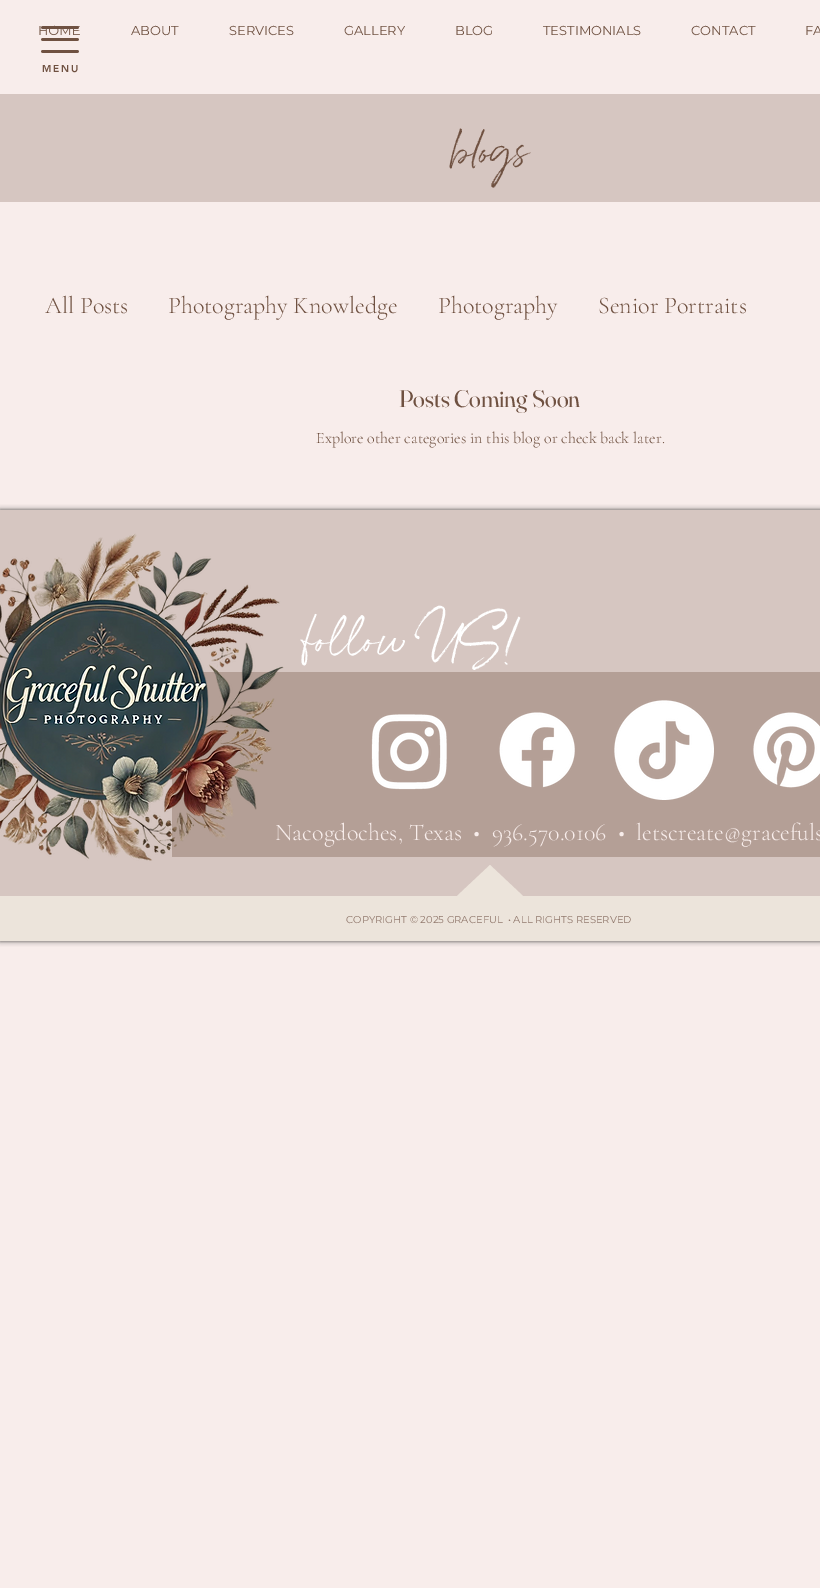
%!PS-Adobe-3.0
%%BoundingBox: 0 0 820 1588
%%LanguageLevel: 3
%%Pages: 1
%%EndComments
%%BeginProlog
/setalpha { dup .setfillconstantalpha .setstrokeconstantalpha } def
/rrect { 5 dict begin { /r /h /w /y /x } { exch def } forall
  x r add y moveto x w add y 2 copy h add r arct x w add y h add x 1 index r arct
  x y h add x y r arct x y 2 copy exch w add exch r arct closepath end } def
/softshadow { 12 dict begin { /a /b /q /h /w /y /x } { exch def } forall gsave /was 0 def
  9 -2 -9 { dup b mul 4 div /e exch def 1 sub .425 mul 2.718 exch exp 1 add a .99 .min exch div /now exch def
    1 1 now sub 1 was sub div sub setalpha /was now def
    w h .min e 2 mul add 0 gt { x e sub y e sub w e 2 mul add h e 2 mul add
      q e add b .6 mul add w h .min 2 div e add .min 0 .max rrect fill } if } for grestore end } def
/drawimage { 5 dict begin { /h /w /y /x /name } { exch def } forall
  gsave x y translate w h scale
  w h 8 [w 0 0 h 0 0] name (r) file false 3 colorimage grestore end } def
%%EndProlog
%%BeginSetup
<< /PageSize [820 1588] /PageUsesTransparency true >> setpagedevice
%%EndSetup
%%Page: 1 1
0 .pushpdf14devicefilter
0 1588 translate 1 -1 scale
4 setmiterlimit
0.973 0.929 0.922 setrgbcolor
0 0 820 1588 rectfill
0.839 0.776 0.757 setrgbcolor
0 94 820 108 rectfill
0 setgray
0 510 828 431 0 2.5 0.7 softshadow
0.839 0.776 0.757 setrgbcolor
0 510 820 386 rectfill
0.706 0.624 0.588 setrgbcolor
172 672 648 185 rectfill
(images/3.raw) 371 714 76 76 drawimage
(images/4.raw) 499 712 76 76 drawimage
(images/5.raw) 614 700 100 100 drawimage
(images/6.raw) 753 712 67 76 drawimage
0.925 0.894 0.859 setrgbcolor
0 896 820 45 rectfill
newpath 474 880 moveto 457 896 lineto 474 911 lineto 490 896 lineto 506 911 lineto 523 896 lineto 490 865 lineto closepath fill
/Montserrat-Regular [13 0 0 -13 0 0] selectfont
0.435 0.318 0.255 setrgbcolor
38 35 moveto (HOME) show
131 35 moveto (ABOUT) show
229 35 moveto (SERVICES) show
344 35 moveto (GALLERY) show
455 35 moveto (BLOG) show
543 35 moveto (TESTIMONIALS) show
691 35 moveto (CONTACT) show
805 35 moveto (FA) show
(images/1.raw) 41 26 38 27 drawimage
/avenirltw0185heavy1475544-Black [10 0 0 -10 0 0] selectfont
42 72 moveto 2 0 (MENU) ashow
/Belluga-Regular [36 0 0 -36 0 0] selectfont
451 163 moveto (blogs) show
/CormorantGaramond-Light [24 0 0 -24 0 0] selectfont
45 313 moveto (All Posts) show
168 313 moveto (Photography Knowledge) show
438 313 moveto (Photography) show
598 313 moveto (Senior Portraits) show
/Fraunces-Regular [24 0 0 -24 0 0] selectfont
399 407 moveto (Posts Coming Soon) show
/CormorantGaramond-Light [16 0 0 -16 0 0] selectfont
316 443 moveto (Explore other categories in this blog or check back later.) show
/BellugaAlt-Regular [42 0 0 -42 0 0] selectfont
1 setgray
301 653 moveto (follow US!) show
/CormorantGaramond-Light [24 0 0 -24 0 0] selectfont
0.973 0.929 0.922 setrgbcolor
275 840 moveto (Nacogdoches, Texas  •  936.570.0106  •) show
(images/2.raw) 0 533 284 328 drawimage
636 840 moveto (letscreate@gracefuls) show
/Montserrat-Regular [10 0 0 -10 0 0] selectfont
0.569 0.471 0.424 setrgbcolor
346 923 moveto (COPYRIGHT © 2025 GRACEFUL  • ALL RIGHTS RESERVED) show
.poppdf14devicefilter showpage
%%EOF
